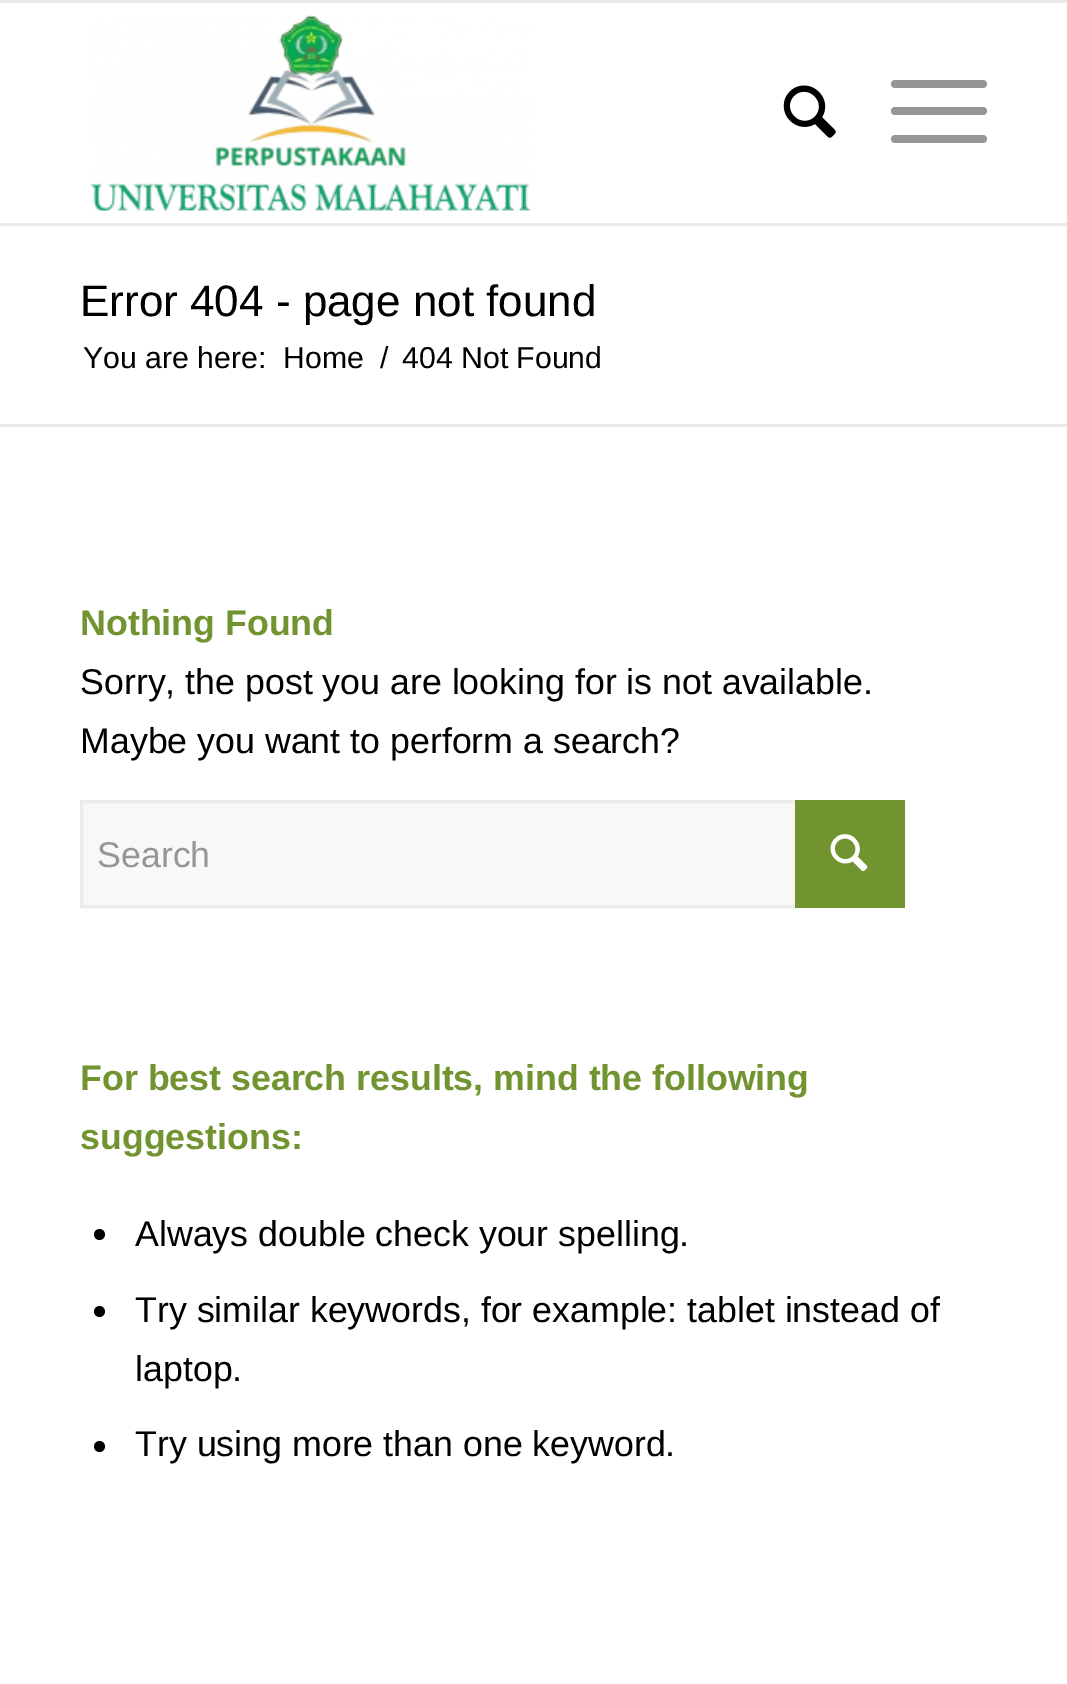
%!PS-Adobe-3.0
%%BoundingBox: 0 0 1067 1684
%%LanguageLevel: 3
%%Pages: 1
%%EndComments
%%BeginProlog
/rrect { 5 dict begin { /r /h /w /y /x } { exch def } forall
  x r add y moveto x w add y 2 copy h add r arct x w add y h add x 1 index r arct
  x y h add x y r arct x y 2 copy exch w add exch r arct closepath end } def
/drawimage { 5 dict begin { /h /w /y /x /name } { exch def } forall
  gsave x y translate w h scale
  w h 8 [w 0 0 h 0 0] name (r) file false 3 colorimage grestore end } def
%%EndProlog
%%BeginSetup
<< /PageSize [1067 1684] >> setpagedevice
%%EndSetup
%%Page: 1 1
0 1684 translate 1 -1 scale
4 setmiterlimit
1 setgray
0 0 1067 1684 rectfill
0.922 setgray
0 0 1067 3 rectfill
0 223 1067 3 rectfill
(images/1.raw) 90 15 441 196 drawimage
(images/2.raw) 783 85 53 53 drawimage
0.588 setgray
891 107 96 8 4 rrect fill
891 80 96 8 4 rrect fill
891 135 96 8 4 rrect fill
0.922 setgray
0 424 1067 3 rectfill
0.973 setgray
83 803 712 102 rectfill
0.922 setgray
3 setlinewidth
81.5 801.5 822 105 rectstroke
0.443 0.58 0.188 setrgbcolor
795 800 110 108 rectfill
(images/3.raw) 830 834 38 38 drawimage
0 setgray
newpath 99.5 1234.5 5.5 0 360 arc closepath fill
newpath 99.5 1311.5 5.5 0 360 arc closepath fill
newpath 99.5 1446.5 5.5 0 360 arc closepath fill
/LiberationSans-Regular [44 0 0 -44 0 0] selectfont
80 316 moveto (Error 404 - page not found) show
/LiberationSans-Regular [30.25 0 0 -30.25 0 0] selectfont
83 368 moveto (You are here:) show
283 368 moveto (Home) show
380 368 moveto (/) show
402 368 moveto (404 Not Found) show
/LiberationSans-Bold [35.75 0 0 -35.75 0 0] selectfont
0.443 0.58 0.188 setrgbcolor
80 635 moveto (Nothing Found) show
/LiberationSans-Regular [35.75 0 0 -35.75 0 0] selectfont
0 setgray
80 694 moveto (Sorry, the post you are looking for is not available.) show
80 753 moveto (Maybe you want to perform a search?) show
0.588 setgray
97 867 moveto (Search) show
/LiberationSans-Bold [35.75 0 0 -35.75 0 0] selectfont
0.443 0.58 0.188 setrgbcolor
80 1090 moveto (For best search results, mind the following) show
80 1149 moveto (suggestions:) show
/LiberationSans-Regular [35.75 0 0 -35.75 0 0] selectfont
0 setgray
135 1246 moveto (Always double check your spelling.) show
135 1322 moveto (Try similar keywords, for example: tablet instead of) show
135 1381 moveto (laptop.) show
135 1456 moveto (Try using more than one keyword.) show
showpage
%%EOF
